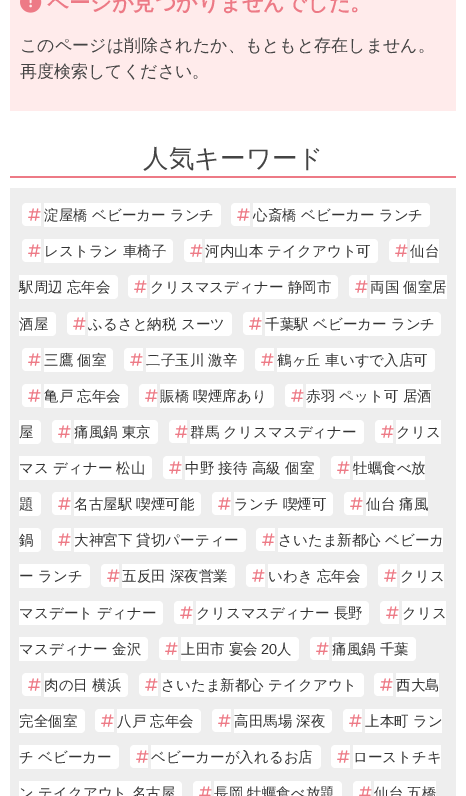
%!PS-Adobe-3.0
%%BoundingBox: 0 0 466 796
%%LanguageLevel: 3
%%Pages: 1
%%EndComments
%%BeginProlog
/drawimage { 5 dict begin { /h /w /y /x /name } { exch def } forall
  gsave x y translate w h scale
  w h 8 [w 0 0 h 0 0] name (r) file false 3 colorimage grestore end } def
%%EndProlog
%%BeginSetup
<< /PageSize [466 796] >> setpagedevice
%%EndSetup
%%Page: 1 1
0 796 translate 1 -1 scale
4 setmiterlimit
1 setgray
0 0 466 796 rectfill
1 0.922 0.922 setrgbcolor
10 0 446 111 rectfill
(images/1.raw) 20 0 22 13 drawimage
0.929 0.478 0.525 setrgbcolor
10 176 446 2 rectfill
0.933 setgray
10 188 446 608 rectfill
1 setgray
newpath 26 203 moveto 41 203 lineto 41 226 lineto 26 226 lineto 24 226 22 224 22 222 curveto 22 207 lineto 22 205 24 203 26 203 curveto closepath fill
(images/2.raw) 28 208 13 13 drawimage
newpath 44 203 moveto 217 203 lineto 219 203 221 205 221 207 curveto 221 223 lineto 221 225 219 227 217 227 curveto 44 227 lineto closepath fill
newpath 235 203 moveto 250 203 lineto 250 226 lineto 235 226 lineto 233 226 231 224 231 222 curveto 231 207 lineto 231 205 233 203 235 203 curveto closepath fill
(images/2.raw) 237 208 13 13 drawimage
newpath 253 203 moveto 426 203 lineto 428 203 430 205 430 207 curveto 430 223 lineto 430 225 428 227 426 227 curveto 253 227 lineto closepath fill
newpath 26 239 moveto 41 239 lineto 41 262 lineto 26 262 lineto 24 262 22 260 22 258 curveto 22 243 lineto 22 241 24 239 26 239 curveto closepath fill
(images/2.raw) 28 244 13 13 drawimage
newpath 44 239 moveto 169 239 lineto 171 239 173 241 173 243 curveto 173 259 lineto 173 261 171 263 169 263 curveto 44 263 lineto closepath fill
newpath 188 239 moveto 202 239 lineto 202 262 lineto 188 262 lineto 186 262 184 260 184 258 curveto 184 243 lineto 184 241 186 239 188 239 curveto closepath fill
(images/3.raw) 190 244 13 13 drawimage
newpath 205 239 moveto 374 239 lineto 376 239 378 241 378 243 curveto 378 259 lineto 378 261 376 263 374 263 curveto 205 263 lineto closepath fill
newpath 393 239 moveto 407 239 lineto 407 262 lineto 393 262 lineto 391 262 389 260 389 258 curveto 389 243 lineto 389 241 391 239 393 239 curveto closepath fill
(images/3.raw) 395 244 13 13 drawimage
410 239 29 24 rectfill
newpath 19 275 moveto 114 275 lineto 116 275 118 277 118 279 curveto 118 295 lineto 118 297 116 299 114 299 curveto 19 299 lineto closepath fill
newpath 132 275 moveto 147 275 lineto 147 298 lineto 132 298 lineto 130 298 128 296 128 294 curveto 128 279 lineto 128 277 130 275 132 275 curveto closepath fill
(images/2.raw) 134 280 13 13 drawimage
newpath 150 275 moveto 334 275 lineto 336 275 338 277 338 279 curveto 338 295 lineto 338 297 336 299 334 299 curveto 150 299 lineto closepath fill
newpath 353 275 moveto 367 275 lineto 367 298 lineto 353 298 lineto 351 298 349 296 349 294 curveto 349 279 lineto 349 277 351 275 353 275 curveto closepath fill
(images/3.raw) 355 280 13 13 drawimage
370 275 77 24 rectfill
newpath 19 312 moveto 52 312 lineto 54 312 56 314 56 316 curveto 56 332 lineto 56 334 54 336 52 336 curveto 19 336 lineto closepath fill
newpath 71 312 moveto 85 312 lineto 85 335 lineto 71 335 lineto 69 335 67 333 67 331 curveto 67 316 lineto 67 314 69 312 71 312 curveto closepath fill
(images/3.raw) 73 317 13 13 drawimage
newpath 88 312 moveto 228 312 lineto 230 312 232 314 232 316 curveto 232 332 lineto 232 334 230 336 228 336 curveto 88 336 lineto closepath fill
newpath 247 312 moveto 262 312 lineto 262 335 lineto 247 335 lineto 245 335 243 333 243 331 curveto 243 316 lineto 243 314 245 312 247 312 curveto closepath fill
(images/2.raw) 249 317 13 13 drawimage
newpath 265 312 moveto 437 312 lineto 439 312 441 314 441 316 curveto 441 332 lineto 441 334 439 336 437 336 curveto 265 336 lineto closepath fill
newpath 26 348 moveto 41 348 lineto 41 371 lineto 26 371 lineto 24 371 22 369 22 367 curveto 22 352 lineto 22 350 24 348 26 348 curveto closepath fill
(images/2.raw) 28 353 13 13 drawimage
newpath 44 348 moveto 109 348 lineto 111 348 113 350 113 352 curveto 113 368 lineto 113 370 111 372 109 372 curveto 44 372 lineto closepath fill
newpath 128 348 moveto 143 348 lineto 143 371 lineto 128 371 lineto 126 371 124 369 124 367 curveto 124 352 lineto 124 350 126 348 128 348 curveto closepath fill
(images/2.raw) 130 353 13 13 drawimage
newpath 146 348 moveto 240 348 lineto 242 348 244 350 244 352 curveto 244 368 lineto 244 370 242 372 240 372 curveto 146 372 lineto closepath fill
newpath 259 348 moveto 274 348 lineto 274 371 lineto 259 371 lineto 257 371 255 369 255 367 curveto 255 352 lineto 255 350 257 348 259 348 curveto closepath fill
(images/2.raw) 261 353 13 13 drawimage
newpath 277 348 moveto 431 348 lineto 433 348 435 350 435 352 curveto 435 368 lineto 435 370 433 372 431 372 curveto 277 372 lineto closepath fill
newpath 26 384 moveto 41 384 lineto 41 407 lineto 26 407 lineto 24 407 22 405 22 403 curveto 22 388 lineto 22 386 24 384 26 384 curveto closepath fill
(images/2.raw) 28 389 13 13 drawimage
newpath 44 384 moveto 124 384 lineto 126 384 128 386 128 388 curveto 128 404 lineto 128 406 126 408 124 408 curveto 44 408 lineto closepath fill
newpath 143 384 moveto 157 384 lineto 157 407 lineto 143 407 lineto 141 407 139 405 139 403 curveto 139 388 lineto 139 386 141 384 143 384 curveto closepath fill
(images/3.raw) 145 389 13 13 drawimage
newpath 160 384 moveto 270 384 lineto 272 384 274 386 274 388 curveto 274 404 lineto 274 406 272 408 270 408 curveto 160 408 lineto closepath fill
newpath 289 384 moveto 303 384 lineto 303 407 lineto 289 407 lineto 287 407 285 405 285 403 curveto 285 388 lineto 285 386 287 384 289 384 curveto closepath fill
(images/3.raw) 291 389 13 13 drawimage
306 384 125 24 rectfill
newpath 19 420 moveto 37 420 lineto 39 420 41 422 41 424 curveto 41 440 lineto 41 442 39 444 37 444 curveto 19 444 lineto closepath fill
newpath 56 420 moveto 71 420 lineto 71 443 lineto 56 443 lineto 54 443 52 441 52 439 curveto 52 424 lineto 52 422 54 420 56 420 curveto closepath fill
(images/2.raw) 58 425 13 13 drawimage
newpath 74 420 moveto 154 420 lineto 156 420 158 422 158 424 curveto 158 440 lineto 158 442 156 444 154 444 curveto 74 444 lineto closepath fill
newpath 173 420 moveto 187 420 lineto 187 443 lineto 173 443 lineto 171 443 169 441 169 439 curveto 169 424 lineto 169 422 171 420 173 420 curveto closepath fill
(images/3.raw) 175 425 13 13 drawimage
newpath 190 420 moveto 360 420 lineto 362 420 364 422 364 424 curveto 364 440 lineto 364 442 362 444 360 444 curveto 190 444 lineto closepath fill
newpath 379 420 moveto 393 420 lineto 393 443 lineto 379 443 lineto 377 443 375 441 375 439 curveto 375 424 lineto 375 422 377 420 379 420 curveto closepath fill
(images/3.raw) 381 425 13 13 drawimage
396 420 45 24 rectfill
newpath 19 456 moveto 148 456 lineto 150 456 152 458 152 460 curveto 152 476 lineto 152 478 150 480 148 480 curveto 19 480 lineto closepath fill
newpath 167 456 moveto 182 456 lineto 182 479 lineto 167 479 lineto 165 479 163 477 163 475 curveto 163 460 lineto 163 458 165 456 167 456 curveto closepath fill
(images/2.raw) 169 461 13 13 drawimage
newpath 185 456 moveto 316 456 lineto 318 456 320 458 320 460 curveto 320 476 lineto 320 478 318 480 316 480 curveto 185 480 lineto closepath fill
newpath 335 456 moveto 350 456 lineto 350 479 lineto 335 479 lineto 333 479 331 477 331 475 curveto 331 460 lineto 331 458 333 456 335 456 curveto closepath fill
(images/2.raw) 337 461 13 13 drawimage
353 456 72 24 rectfill
newpath 19 492 moveto 37 492 lineto 39 492 41 494 41 496 curveto 41 512 lineto 41 514 39 516 37 516 curveto 19 516 lineto closepath fill
newpath 56 492 moveto 71 492 lineto 71 515 lineto 56 515 lineto 54 515 52 513 52 511 curveto 52 496 lineto 52 494 54 492 56 492 curveto closepath fill
(images/2.raw) 58 497 13 13 drawimage
newpath 74 492 moveto 197 492 lineto 199 492 201 494 201 496 curveto 201 512 lineto 201 514 199 516 197 516 curveto 74 516 lineto closepath fill
newpath 216 492 moveto 231 492 lineto 231 515 lineto 216 515 lineto 214 515 212 513 212 511 curveto 212 496 lineto 212 494 214 492 216 492 curveto closepath fill
(images/2.raw) 218 497 13 13 drawimage
newpath 234 492 moveto 329 492 lineto 331 492 333 494 333 496 curveto 333 512 lineto 333 514 331 516 329 516 curveto 234 516 lineto closepath fill
newpath 348 492 moveto 363 492 lineto 363 515 lineto 348 515 lineto 346 515 344 513 344 511 curveto 344 496 lineto 344 494 346 492 348 492 curveto closepath fill
(images/2.raw) 350 497 13 13 drawimage
366 492 62 24 rectfill
newpath 19 528 moveto 37 528 lineto 39 528 41 530 41 532 curveto 41 548 lineto 41 550 39 552 37 552 curveto 19 552 lineto closepath fill
newpath 56 528 moveto 71 528 lineto 71 551 lineto 56 551 lineto 54 551 52 549 52 547 curveto 52 532 lineto 52 530 54 528 56 528 curveto closepath fill
(images/2.raw) 58 533 13 13 drawimage
newpath 74 528 moveto 242 528 lineto 244 528 246 530 246 532 curveto 246 548 lineto 246 550 244 552 242 552 curveto 74 552 lineto closepath fill
newpath 260 528 moveto 275 528 lineto 275 551 lineto 260 551 lineto 258 551 256 549 256 547 curveto 256 532 lineto 256 530 258 528 260 528 curveto closepath fill
(images/2.raw) 262 533 13 13 drawimage
278 528 165 24 rectfill
newpath 19 564 moveto 86 564 lineto 88 564 90 566 90 568 curveto 90 584 lineto 90 586 88 588 86 588 curveto 19 588 lineto closepath fill
newpath 105 564 moveto 119 564 lineto 119 587 lineto 105 587 lineto 103 587 101 585 101 583 curveto 101 568 lineto 101 566 103 564 105 564 curveto closepath fill
(images/3.raw) 107 569 13 13 drawimage
newpath 122 564 moveto 231 564 lineto 233 564 235 566 235 568 curveto 235 584 lineto 235 586 233 588 231 588 curveto 122 588 lineto closepath fill
newpath 250 564 moveto 265 564 lineto 265 587 lineto 250 587 lineto 248 587 246 585 246 583 curveto 246 568 lineto 246 566 248 564 250 564 curveto closepath fill
(images/2.raw) 252 569 13 13 drawimage
newpath 268 564 moveto 363 564 lineto 365 564 367 566 367 568 curveto 367 584 lineto 367 586 365 588 363 588 curveto 268 588 lineto closepath fill
newpath 382 564 moveto 397 564 lineto 397 587 lineto 382 587 lineto 380 587 378 585 378 583 curveto 378 568 lineto 378 566 380 564 382 564 curveto closepath fill
(images/2.raw) 384 569 13 13 drawimage
400 564 44 24 rectfill
newpath 19 601 moveto 159 601 lineto 161 601 163 603 163 605 curveto 163 621 lineto 163 623 161 625 159 625 curveto 19 625 lineto closepath fill
newpath 178 601 moveto 193 601 lineto 193 624 lineto 178 624 lineto 176 624 174 622 174 620 curveto 174 605 lineto 174 603 176 601 178 601 curveto closepath fill
(images/2.raw) 180 606 13 13 drawimage
newpath 196 601 moveto 365 601 lineto 367 601 369 603 369 605 curveto 369 621 lineto 369 623 367 625 365 625 curveto 196 625 lineto closepath fill
newpath 384 601 moveto 399 601 lineto 399 624 lineto 384 624 lineto 382 624 380 622 380 620 curveto 380 605 lineto 380 603 382 601 384 601 curveto closepath fill
(images/2.raw) 386 606 13 13 drawimage
402 601 44 24 rectfill
newpath 19 637 moveto 144 637 lineto 146 637 148 639 148 641 curveto 148 657 lineto 148 659 146 661 144 661 curveto 19 661 lineto closepath fill
newpath 163 637 moveto 178 637 lineto 178 660 lineto 163 660 lineto 161 660 159 658 159 656 curveto 159 641 lineto 159 639 161 637 163 637 curveto closepath fill
(images/2.raw) 165 642 13 13 drawimage
newpath 181 637 moveto 295 637 lineto 297 637 299 639 299 641 curveto 299 657 lineto 299 659 297 661 295 661 curveto 181 661 lineto closepath fill
newpath 314 637 moveto 329 637 lineto 329 660 lineto 314 660 lineto 312 660 310 658 310 656 curveto 310 641 lineto 310 639 312 637 314 637 curveto closepath fill
(images/2.raw) 316 642 13 13 drawimage
newpath 332 637 moveto 412 637 lineto 414 637 416 639 416 641 curveto 416 657 lineto 416 659 414 661 412 661 curveto 332 661 lineto closepath fill
newpath 26 673 moveto 41 673 lineto 41 696 lineto 26 696 lineto 24 696 22 694 22 692 curveto 22 677 lineto 22 675 24 673 26 673 curveto closepath fill
(images/2.raw) 28 678 13 13 drawimage
newpath 44 673 moveto 124 673 lineto 126 673 128 675 128 677 curveto 128 693 lineto 128 695 126 697 124 697 curveto 44 697 lineto closepath fill
newpath 143 673 moveto 158 673 lineto 158 696 lineto 143 696 lineto 141 696 139 694 139 692 curveto 139 677 lineto 139 675 141 673 143 673 curveto closepath fill
(images/2.raw) 145 678 13 13 drawimage
newpath 161 673 moveto 360 673 lineto 362 673 364 675 364 677 curveto 364 693 lineto 364 695 362 697 360 697 curveto 161 697 lineto closepath fill
newpath 378 673 moveto 393 673 lineto 393 696 lineto 378 696 lineto 376 696 374 694 374 692 curveto 374 677 lineto 374 675 376 673 378 673 curveto closepath fill
(images/2.raw) 380 678 13 13 drawimage
396 673 43 24 rectfill
newpath 19 709 moveto 81 709 lineto 83 709 85 711 85 713 curveto 85 729 lineto 85 731 83 733 81 733 curveto 19 733 lineto closepath fill
newpath 99 709 moveto 114 709 lineto 114 732 lineto 99 732 lineto 97 732 95 730 95 728 curveto 95 713 lineto 95 711 97 709 99 709 curveto closepath fill
(images/2.raw) 101 714 13 13 drawimage
newpath 117 709 moveto 197 709 lineto 199 709 201 711 201 713 curveto 201 729 lineto 201 731 199 733 197 733 curveto 117 733 lineto closepath fill
newpath 216 709 moveto 231 709 lineto 231 732 lineto 216 732 lineto 214 732 212 730 212 728 curveto 212 713 lineto 212 711 214 709 216 709 curveto closepath fill
(images/2.raw) 218 714 13 13 drawimage
newpath 234 709 moveto 328 709 lineto 330 709 332 711 332 713 curveto 332 729 lineto 332 731 330 733 328 733 curveto 234 733 lineto closepath fill
newpath 347 709 moveto 362 709 lineto 362 732 lineto 347 732 lineto 345 732 343 730 343 728 curveto 343 713 lineto 343 711 345 709 347 709 curveto closepath fill
(images/2.raw) 349 714 13 13 drawimage
365 709 77 24 rectfill
newpath 19 745 moveto 115 745 lineto 117 745 119 747 119 749 curveto 119 765 lineto 119 767 117 769 115 769 curveto 19 769 lineto closepath fill
newpath 134 745 moveto 148 745 lineto 148 768 lineto 134 768 lineto 132 768 130 766 130 764 curveto 130 749 lineto 130 747 132 745 134 745 curveto closepath fill
(images/3.raw) 136 750 13 13 drawimage
newpath 151 745 moveto 317 745 lineto 319 745 321 747 321 749 curveto 321 765 lineto 321 767 319 769 317 769 curveto 151 769 lineto closepath fill
newpath 335 745 moveto 350 745 lineto 350 768 lineto 335 768 lineto 333 768 331 766 331 764 curveto 331 749 lineto 331 747 333 745 335 745 curveto closepath fill
(images/2.raw) 337 750 13 13 drawimage
353 745 88 24 rectfill
newpath 19 781 moveto 178 781 lineto 180 781 182 783 182 785 curveto 182 796 lineto 182 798 180 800 178 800 curveto 19 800 lineto closepath fill
newpath 197 781 moveto 211 781 lineto 211 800 lineto 197 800 lineto 195 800 193 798 193 796 curveto 193 785 lineto 193 783 195 781 197 781 curveto closepath fill
(images/4.raw) 199 786 13 10 drawimage
newpath 214 781 moveto 338 781 lineto 340 781 342 783 342 785 curveto 342 796 lineto 342 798 340 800 338 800 curveto 214 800 lineto closepath fill
newpath 357 781 moveto 371 781 lineto 371 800 lineto 357 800 lineto 355 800 353 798 353 796 curveto 353 785 lineto 353 783 355 781 357 781 curveto closepath fill
(images/4.raw) 359 786 13 10 drawimage
374 781 62 15 rectfill
/WenQuanYiZenHei-Bold [21.25 0 0 -21.25 0 0] selectfont
0.929 0.478 0.525 setrgbcolor
47 10 moveto (ページが見つかりませんでした。) show
/WenQuanYiZenHei-Medium [17 0 0 -17 0 0] selectfont
0.267 setgray
20 51 moveto (このページは削除されたか、もともと存在しません。) show
20 77 moveto (再度検索してください。) show
/WenQuanYiZenHei-Medium [25.5 0 0 -25.5 0 0] selectfont
143 167 moveto (人気キーワード) show
/WenQuanYiZenHei-Medium [14.5 0 0 -14.5 0 0] selectfont
0.2 setgray
44 220 moveto (淀屋橋 ベビーカー ランチ) show
253 220 moveto (心斎橋 ベビーカー ランチ) show
44 256 moveto (レストラン 車椅子) show
205 256 moveto (河内山本 テイクアウト可) show
410 256 moveto (仙台) show
19 292 moveto (駅周辺 忘年会) show
150 292 moveto (クリスマスディナー 静岡市) show
370 292 moveto (両国 個室居) show
19 329 moveto (酒屋) show
88 329 moveto (ふるさと納税 スーツ) show
265 329 moveto (千葉駅 ベビーカー ランチ) show
44 365 moveto (三鷹 個室) show
146 365 moveto (二子玉川 激辛) show
277 365 moveto (鶴ヶ丘 車いすで入店可) show
44 401 moveto (亀戸 忘年会) show
160 401 moveto (賑橋 喫煙席あり) show
306 401 moveto (赤羽 ペット可 居酒) show
19 437 moveto (屋) show
74 437 moveto (痛風鍋 東京) show
190 437 moveto (群馬 クリスマスディナー) show
396 437 moveto (クリス) show
19 473 moveto (マス ディナー 松山) show
185 473 moveto (中野 接待 高級 個室) show
353 473 moveto (牡蠣食べ放) show
19 509 moveto (題) show
74 509 moveto (名古屋駅 喫煙可能) show
234 509 moveto (ランチ 喫煙可) show
366 509 moveto (仙台 痛風) show
19 545 moveto (鍋) show
74 545 moveto (大神宮下 貸切パーティー) show
278 545 moveto (さいたま新都心 ベビーカ) show
19 581 moveto (ー ランチ) show
122 581 moveto (五反田 深夜営業) show
268 581 moveto (いわき 忘年会) show
400 581 moveto (クリス) show
19 618 moveto (マスデート ディナー) show
196 618 moveto (クリスマスディナー 長野) show
402 618 moveto (クリス) show
19 654 moveto (マスディナー 金沢) show
181 654 moveto (上田市 宴会) show
/LiberationSans-Regular [14.5 0 0 -14.5 0 0] selectfont
261 654 moveto (20) show
/WenQuanYiZenHei-Medium [14.5 0 0 -14.5 0 0] selectfont
277 654 moveto (人) show
332 654 moveto (痛風鍋 千葉) show
44 690 moveto (肉の日 横浜) show
161 690 moveto (さいたま新都心 テイクアウト) show
396 690 moveto (西大島) show
19 726 moveto (完全個室) show
117 726 moveto (八戸 忘年会) show
234 726 moveto (高田馬場 深夜) show
365 726 moveto (上本町 ラン) show
19 762 moveto (チ ベビーカー) show
151 762 moveto (ベビーカーが入れるお店) show
353 762 moveto (ローストチキ) show
19 798 moveto (ン テイクアウト 名古屋) show
214 798 moveto (長岡 牡蠣食べ放題) show
374 798 moveto (仙台 五橋) show
showpage
%%EOF
